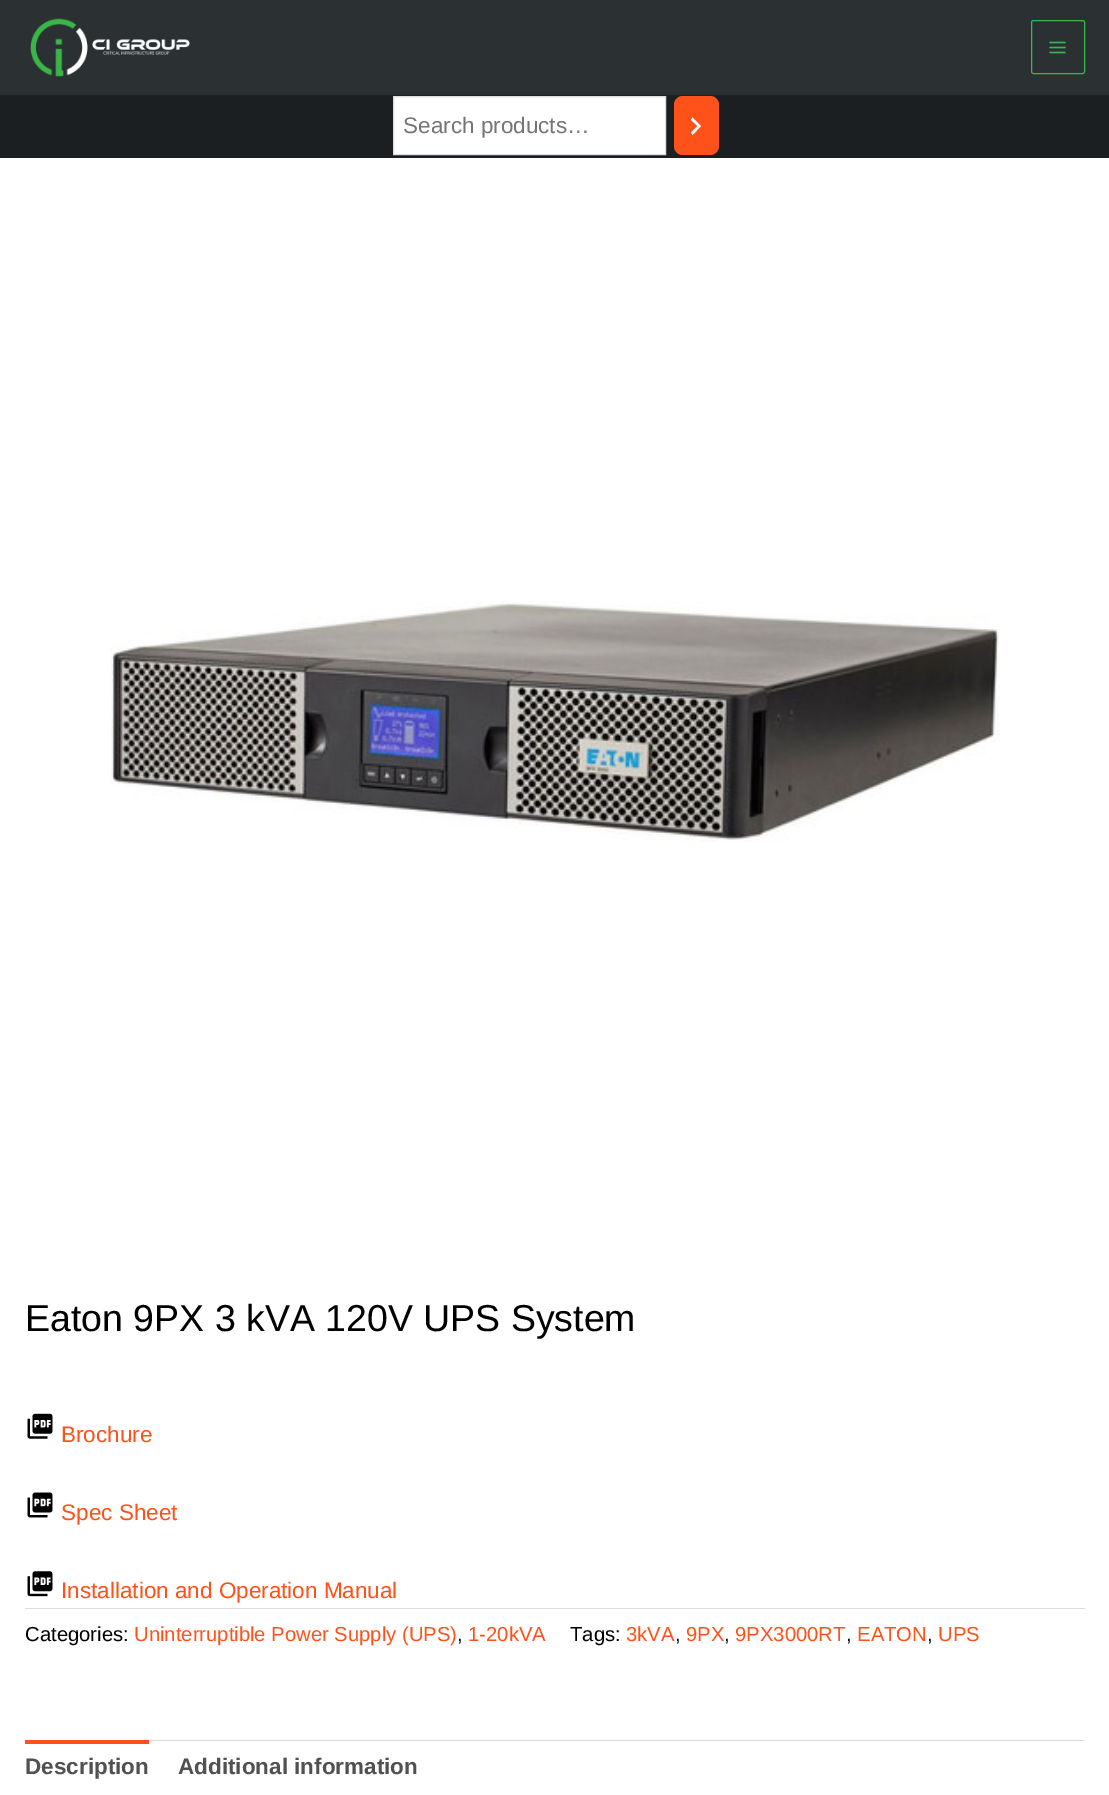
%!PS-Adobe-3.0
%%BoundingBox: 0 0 1109 1795
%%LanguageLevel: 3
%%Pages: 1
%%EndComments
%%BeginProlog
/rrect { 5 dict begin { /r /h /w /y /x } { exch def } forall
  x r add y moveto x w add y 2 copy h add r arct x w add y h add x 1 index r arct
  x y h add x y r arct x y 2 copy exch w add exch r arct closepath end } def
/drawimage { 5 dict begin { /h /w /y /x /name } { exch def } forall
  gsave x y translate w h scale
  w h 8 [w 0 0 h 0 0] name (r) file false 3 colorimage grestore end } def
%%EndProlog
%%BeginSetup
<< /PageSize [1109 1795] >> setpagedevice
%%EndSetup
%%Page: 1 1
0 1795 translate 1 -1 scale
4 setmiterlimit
1 setgray
0 0 1109 1795 rectfill
0.169 0.192 0.2 setrgbcolor
0 0 1109 95 rectfill
(images/1.raw) 30 18 160 59 drawimage
0.227 0.71 0.29 setrgbcolor
1031.5 20.5 53 53 2 rrect stroke
(images/2.raw) 1049 41 17 13 drawimage
0.106 0.122 0.129 setrgbcolor
0 95 1109 63 rectfill
1 setgray
newpath 393.5 96.5 moveto 665.5 96.5 lineto 665.5 154.5 lineto 393.5 154.5 lineto closepath gsave fill grestore
0.867 setgray
stroke
1 0.322 0.106 setrgbcolor
674 96 45 59 9 rrect fill
1 setgray
newpath 691 132.5 moveto 697.5 126 lineto 691 120 lineto 692.5 117.5 lineto 701 126 lineto 692.5 135 lineto closepath fill
(images/3.raw) 110 601 890 241 drawimage
(images/4.raw) 27 1413 26 26 drawimage
(images/5.raw) 27 1492 26 26 drawimage
(images/6.raw) 27 1571 26 26 drawimage
0.867 setgray
25 1608 1060 1 rectfill
149 1740 936 1 rectfill
1 0.322 0.106 setrgbcolor
25 1740 124 4 rectfill
/LiberationSans-Regular [22.5 0 0 -22.5 0 0] selectfont
0.459 setgray
403 133 moveto (Search products…) show
/LiberationSans-Regular [37.5 0 0 -37.5 0 0] selectfont
0 setgray
25 1331 moveto (Eaton 9PX 3 kVA 120V UPS System) show
/LiberationSans-Regular [22.5 0 0 -22.5 0 0] selectfont
1 0.322 0.106 setrgbcolor
61 1442 moveto (Brochure) show
61 1520 moveto (Spec Sheet) show
61 1598 moveto (Installation and Operation Manual) show
/LiberationSans-Regular [20.25 0 0 -20.25 0 0] selectfont
0 setgray
25 1641 moveto (Categories:) show
1 0.322 0.106 setrgbcolor
134 1641 moveto (Uninterruptible Power Supply \(UPS\)) show
0 setgray
457 1641 moveto (,) show
1 0.322 0.106 setrgbcolor
468 1641 moveto (1-20kVA) show
0 setgray
570 1641 moveto (Tags:) show
1 0.322 0.106 setrgbcolor
626 1641 moveto (3kVA) show
0 setgray
675 1641 moveto (,) show
1 0.322 0.106 setrgbcolor
686 1641 moveto (9PX) show
0 setgray
724 1641 moveto (,) show
1 0.322 0.106 setrgbcolor
735 1641 moveto (9PX3000RT) show
0 setgray
846 1641 moveto (,) show
1 0.322 0.106 setrgbcolor
857 1641 moveto (EATON) show
0 setgray
927 1641 moveto (,) show
1 0.322 0.106 setrgbcolor
938 1641 moveto (UPS) show
/LiberationSans-Bold [22.5 0 0 -22.5 0 0] selectfont
0.318 setgray
25 1774 moveto (Description) show
178 1774 moveto (Additional information) show
showpage
%%EOF
